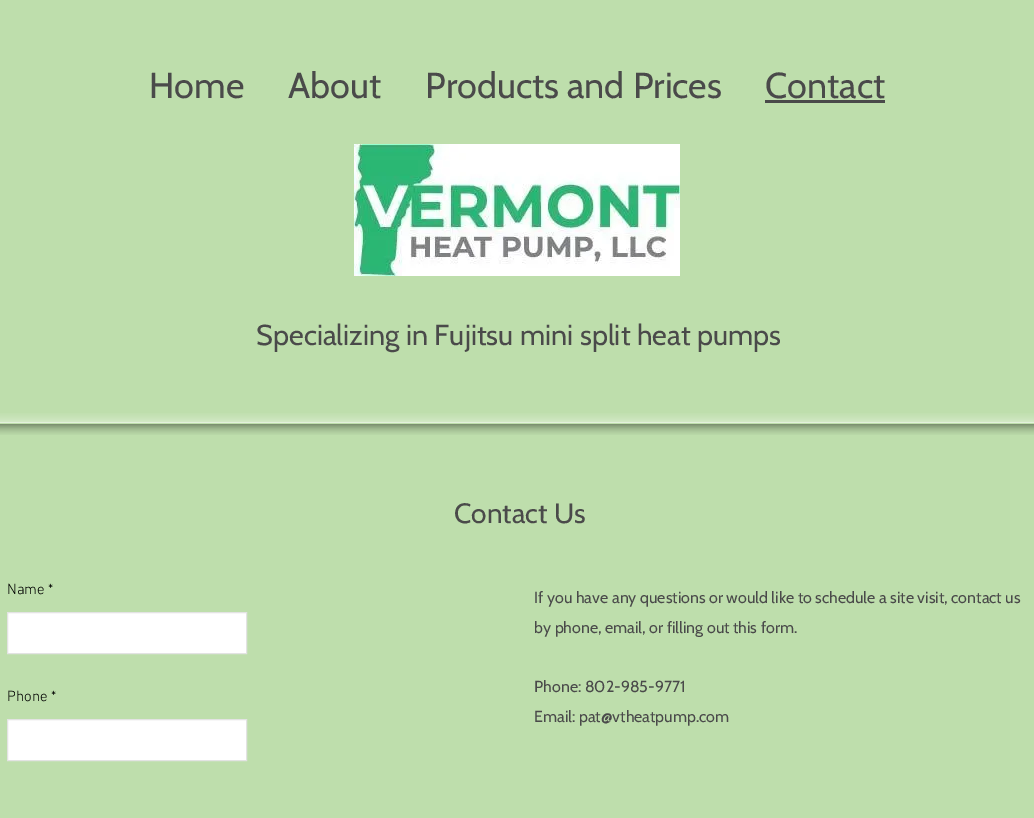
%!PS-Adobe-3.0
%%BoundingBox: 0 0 1034 818
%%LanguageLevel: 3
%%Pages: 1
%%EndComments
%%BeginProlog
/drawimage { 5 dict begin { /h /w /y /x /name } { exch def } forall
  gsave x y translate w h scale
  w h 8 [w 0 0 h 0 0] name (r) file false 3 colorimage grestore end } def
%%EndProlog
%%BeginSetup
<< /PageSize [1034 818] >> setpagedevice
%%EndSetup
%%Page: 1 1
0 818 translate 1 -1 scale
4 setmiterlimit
0.745 0.871 0.675 setrgbcolor
0 0 1034 818 rectfill
0.29 setgray
765 100 120 3 rectfill
(images/1.raw) 354 144 326 132 drawimage
(images/2.raw) 0 413 1034 22 drawimage
1 setgray
newpath 7.5 612.5 moveto 246.5 612.5 lineto 246.5 653.5 lineto 7.5 653.5 lineto closepath gsave fill grestore
0.89 setgray
stroke
1 setgray
newpath 7.5 719.5 moveto 246.5 719.5 lineto 246.5 760.5 lineto 7.5 760.5 lineto closepath gsave fill grestore
0.89 setgray
stroke
/Cabin-Regular [36 0 0 -36 0 0] selectfont
0.29 setgray
149 98 moveto (Home) show
288 98 moveto (About) show
425 98 moveto (Products and Prices) show
765 98 moveto (Contact) show
/Cabin-Regular [28.75 0 0 -28.75 0 0] selectfont
256 345 moveto (Specializing in Fujitsu mini split heat pumps) show
/Cabin-Regular [28 0 0 -28 0 0] selectfont
454 523 moveto (Contact Us) show
/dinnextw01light-Light [15 0 0 -15 0 0] selectfont
0 setgray
7 594 moveto (Name *) show
7 701 moveto (Phone *) show
/Cabin-Regular [16 0 0 -16 0 0] selectfont
0.29 setgray
534 603 moveto (If you have any questions or would like to schedule a site visit, contact us) show
534 633 moveto (by phone, email, or filling out this form.) show
534 692 moveto (Phone: 802-985-9771) show
534 722 moveto (Email: pat@vtheatpump.com) show
showpage
%%EOF
